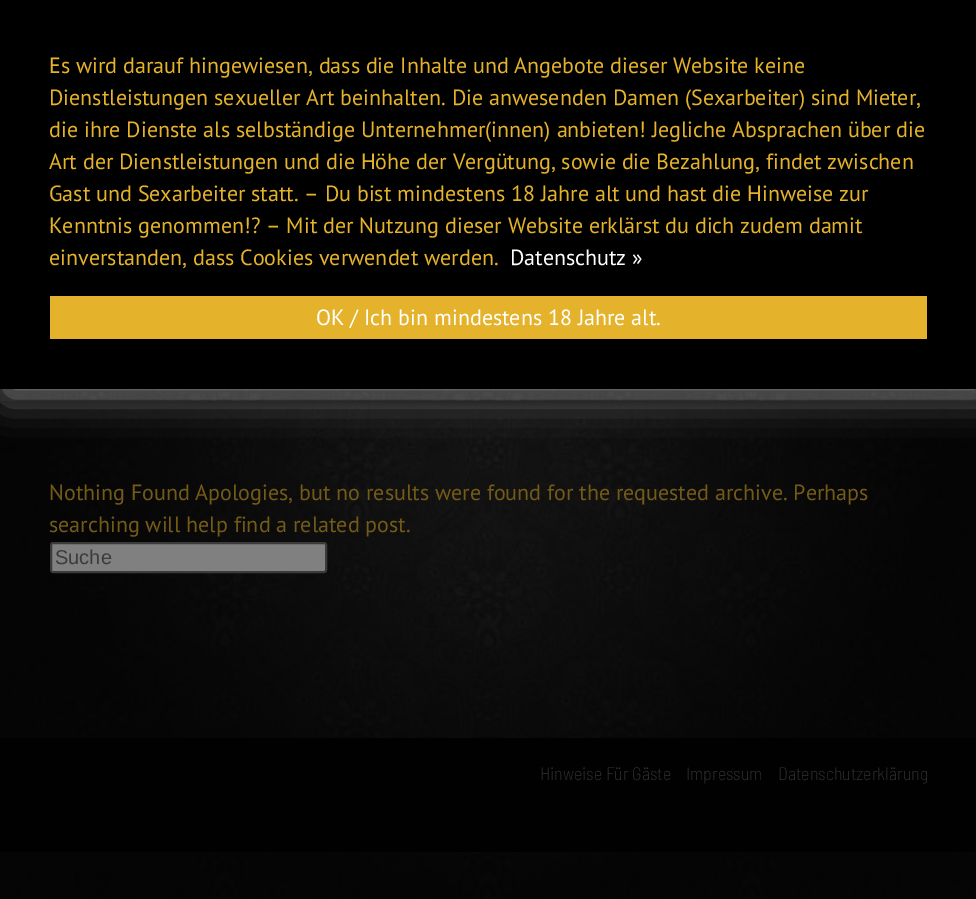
%!PS-Adobe-3.0
%%BoundingBox: 0 0 976 899
%%LanguageLevel: 3
%%Pages: 1
%%EndComments
%%BeginProlog
/setalpha { dup .setfillconstantalpha .setstrokeconstantalpha } def
/rrect { 5 dict begin { /r /h /w /y /x } { exch def } forall
  x r add y moveto x w add y 2 copy h add r arct x w add y h add x 1 index r arct
  x y h add x y r arct x y 2 copy exch w add exch r arct closepath end } def
/softshadow { 12 dict begin { /a /b /q /h /w /y /x } { exch def } forall gsave /was 0 def
  9 -2 -9 { dup b mul 4 div /e exch def 1 sub .425 mul 2.718 exch exp 1 add a .99 .min exch div /now exch def
    1 1 now sub 1 was sub div sub setalpha /was now def
    w h .min e 2 mul add 0 gt { x e sub y e sub w e 2 mul add h e 2 mul add
      q e add b .6 mul add w h .min 2 div e add .min 0 .max rrect fill } if } for grestore end } def
/drawimage { 5 dict begin { /h /w /y /x /name } { exch def } forall
  gsave x y translate w h scale
  w h 8 [w 0 0 h 0 0] name (r) file false 3 colorimage grestore end } def
%%EndProlog
%%BeginSetup
<< /PageSize [976 899] /PageUsesTransparency true >> setpagedevice
%%EndSetup
%%Page: 1 1
0 .pushpdf14devicefilter
0 899 translate 1 -1 scale
4 setmiterlimit
1 setgray
0 0 976 899 rectfill
(images/1.raw) 0 403 976 496 drawimage
(images/2.raw) 0 403 976 496 drawimage
0 setgray
0 3 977 402 0 3 1 softshadow
(images/3.raw) 0 389 976 12 drawimage
0 401 976 2 rectfill
0.533 setgray
6 6 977 389 0 19 1 softshadow
0 setgray
0 0 976 389 rectfill
0.898 0.702 0.169 setrgbcolor
50 296 877 43 rectfill
0.502 setgray
51 543 275 29 2 rrect gsave fill grestore
0.231 setgray
2 setlinewidth
stroke
0.004 setgray
0 738 976 114 rectfill
/PTSans-Regular [22 0 0 -22 0 0] selectfont
0.898 0.702 0.169 setrgbcolor
49 73 moveto (Es wird darauf hingewiesen, dass die Inhalte und Angebote dieser Website keine) show
49 105 moveto (Dienstleistungen sexueller Art beinhalten. Die anwesenden Damen \(Sexarbeiter\) sind Mieter,) show
49 137 moveto (die ihre Dienste als selbständige Unternehmer\(innen\) anbieten! Jegliche Absprachen über die) show
49 169 moveto (Art der Dienstleistungen und die Höhe der Vergütung, sowie die Bezahlung, findet zwischen) show
49 201 moveto (Gast und Sexarbeiter statt. – Du bist mindestens 18 Jahre alt und hast die Hinweise zur) show
49 233 moveto (Kenntnis genommen!? – Mit der Nutzung dieser Website erklärst du dich zudem damit) show
49 265 moveto (einverstanden, dass Cookies verwendet werden.) show
1 setgray
510 265 moveto (Datenschutz ») show
316 325 moveto (OK / Ich bin mindestens 18 Jahre alt.) show
0.451 0.353 0.086 setrgbcolor
49 500 moveto (Nothing Found Apologies, but no results were found for the requested archive. Perhaps) show
49 532 moveto (searching will help find a related post.) show
/LiberationSans-Regular [20 0 0 -20 0 0] selectfont
0.231 setgray
55 564 moveto (Suche) show
/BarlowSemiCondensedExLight-ExtraLight [18 0 0 -18 0 0] selectfont
0.2 setgray
540 780 moveto (Hinweise Für Gäste) show
686 780 moveto (Impressum) show
778 780 moveto (Datenschutzerklärung) show
.poppdf14devicefilter showpage
%%EOF
